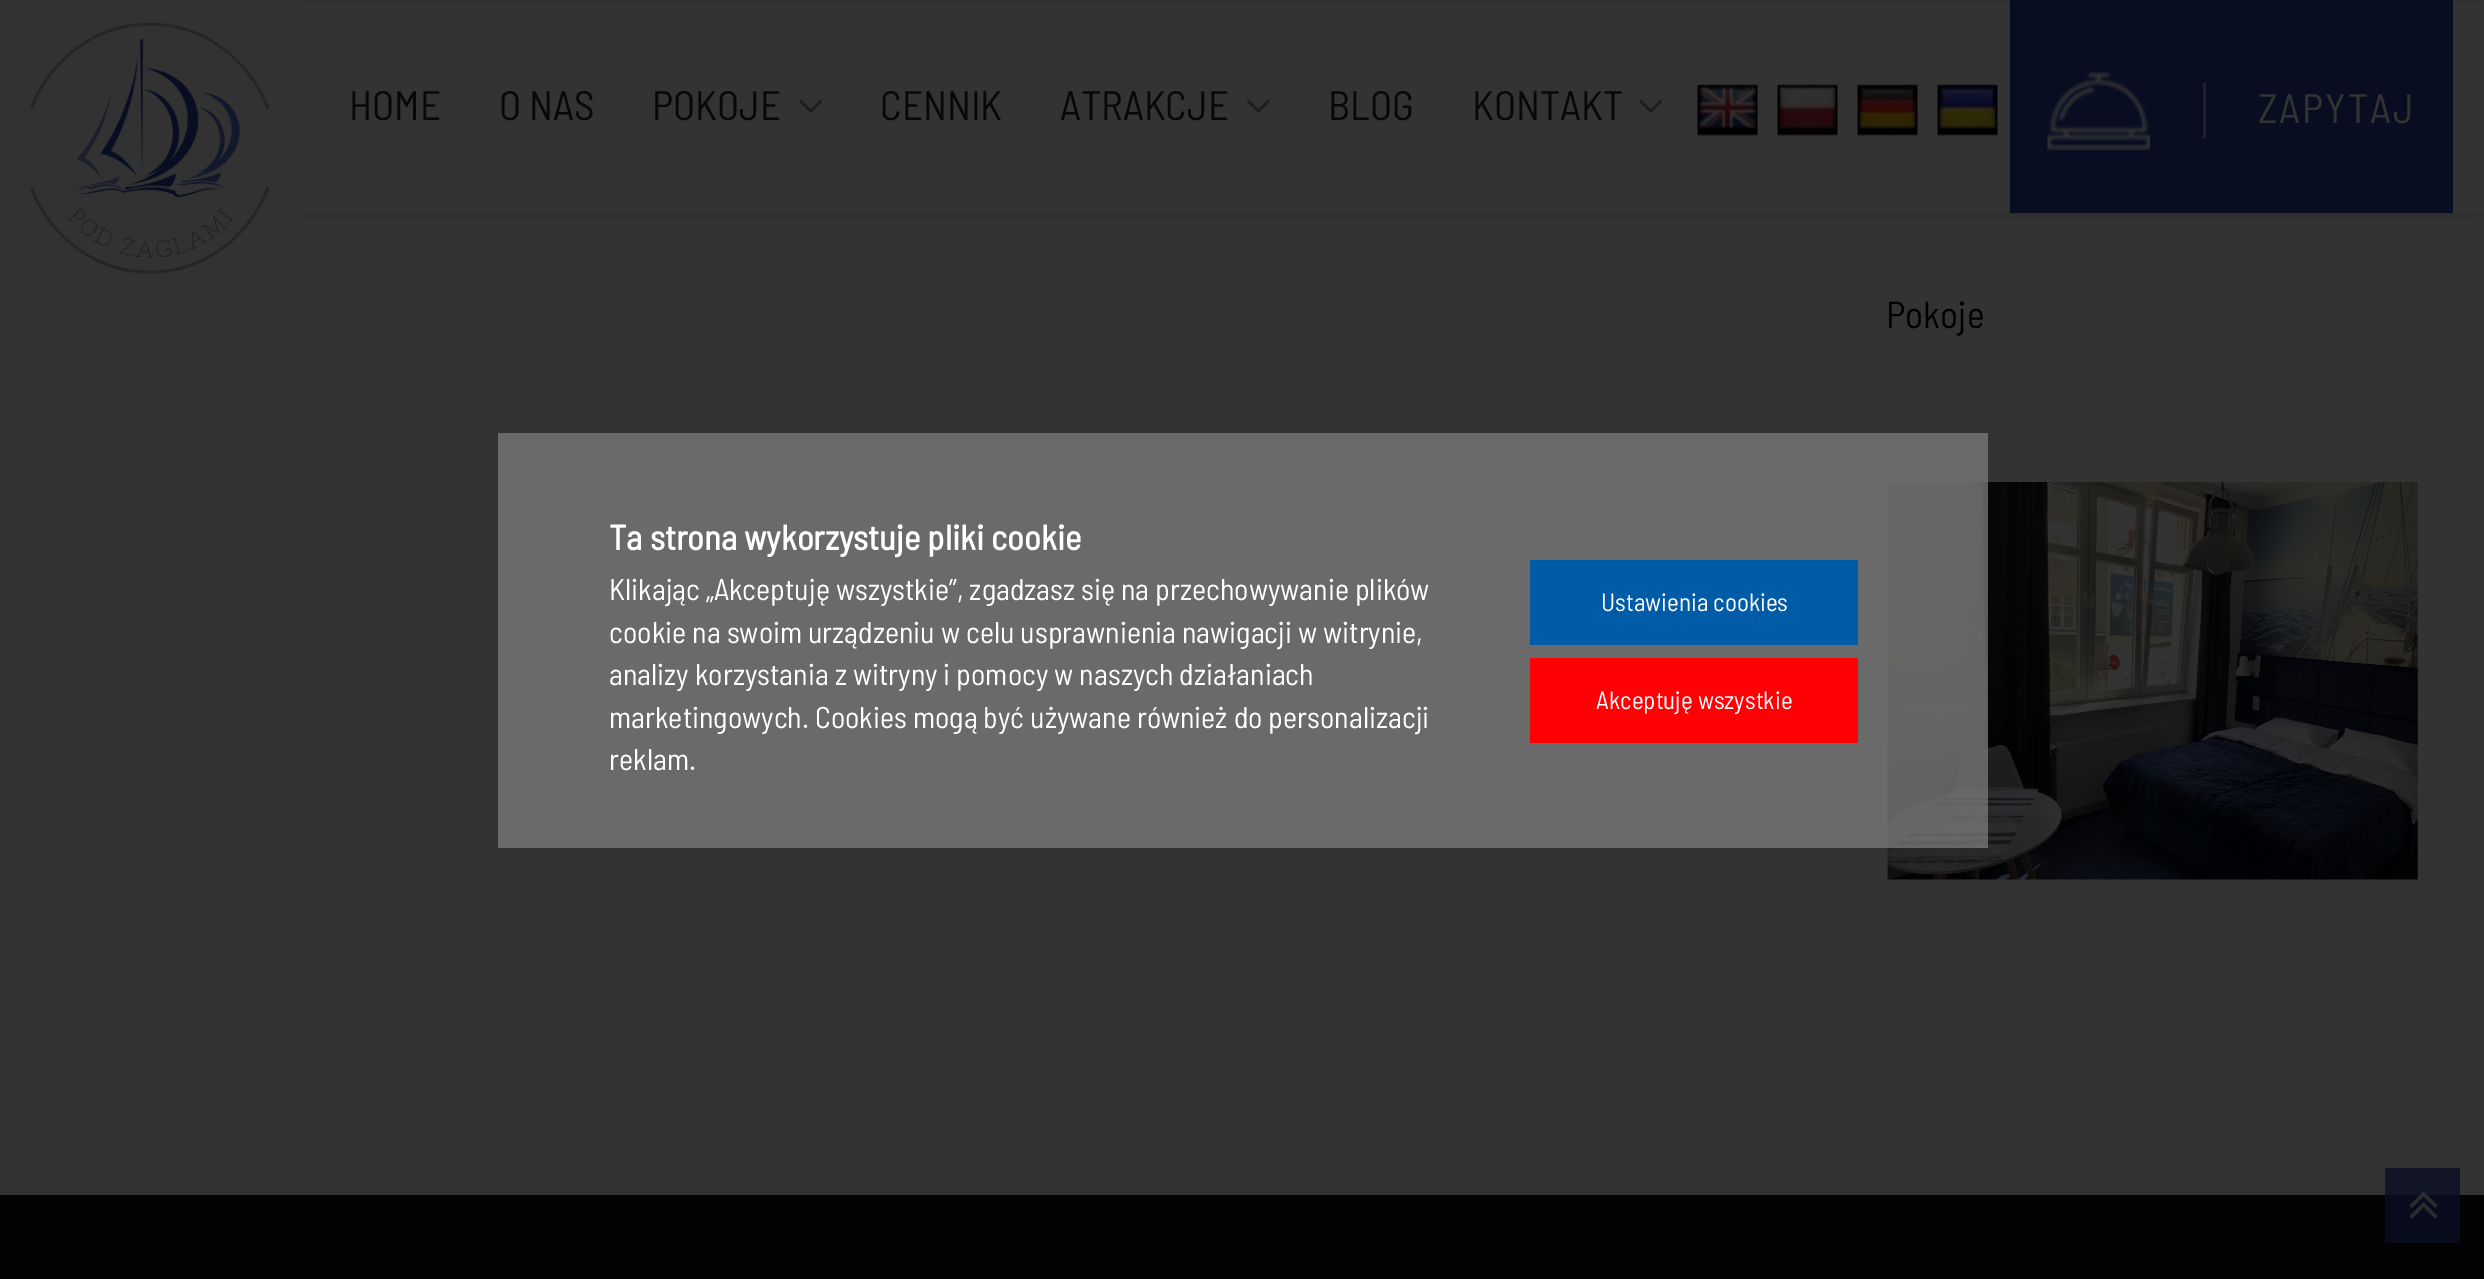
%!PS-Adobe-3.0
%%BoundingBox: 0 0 2484 1279
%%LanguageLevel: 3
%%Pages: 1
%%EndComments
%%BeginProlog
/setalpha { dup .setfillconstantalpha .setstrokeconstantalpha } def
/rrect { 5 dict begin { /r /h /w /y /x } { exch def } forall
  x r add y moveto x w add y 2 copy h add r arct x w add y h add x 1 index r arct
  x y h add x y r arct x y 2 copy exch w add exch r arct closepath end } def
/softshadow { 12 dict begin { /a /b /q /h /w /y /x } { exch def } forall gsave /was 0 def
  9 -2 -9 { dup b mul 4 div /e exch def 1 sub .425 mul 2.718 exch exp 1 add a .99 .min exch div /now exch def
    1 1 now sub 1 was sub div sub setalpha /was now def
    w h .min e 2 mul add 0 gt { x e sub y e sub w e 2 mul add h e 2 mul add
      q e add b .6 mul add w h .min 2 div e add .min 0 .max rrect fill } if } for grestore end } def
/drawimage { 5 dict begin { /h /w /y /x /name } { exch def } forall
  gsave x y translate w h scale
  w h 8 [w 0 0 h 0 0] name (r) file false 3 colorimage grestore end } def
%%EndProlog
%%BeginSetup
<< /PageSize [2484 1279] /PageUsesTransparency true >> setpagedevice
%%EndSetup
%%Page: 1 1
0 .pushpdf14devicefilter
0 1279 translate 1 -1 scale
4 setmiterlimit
0.2 setgray
0 0 2484 1279 rectfill
0.067 0.082 0.145 setrgbcolor
2385 1168 75 27 rectfill
0.031 setgray
5 8 2475 202 0 6 0.4 softshadow
0.2 setgray
300 2 2184 211 rectfill
(images/1.raw) 0 0 300 300 drawimage
(images/2.raw) 799 99 24 14 drawimage
(images/3.raw) 1246 99 24 14 drawimage
(images/2.raw) 1639 99 24 14 drawimage
(images/4.raw) 1697 84 61 52 drawimage
(images/5.raw) 1777 84 61 52 drawimage
(images/6.raw) 1857 84 61 52 drawimage
(images/7.raw) 1937 84 61 52 drawimage
0.031 0.051 0.133 setrgbcolor
2010 0 443 213 rectfill
(images/8.raw) 2047 72 103 79 drawimage
0.118 0.125 0.169 setrgbcolor
2203 83 3 55 rectfill
(images/9.raw) 1887 482 531 398 drawimage
0.012 setgray
0 1195 2484 84 rectfill
0.027 0.043 0.11 setrgbcolor
2385 1195 75 48 rectfill
(images/10.raw) 2409 1191 29 28 drawimage
0.7 setalpha
0.51 setgray
498 433 1490 415 rectfill
1 setalpha
0 0.361 0.655 setrgbcolor
1530 560 328 85 rectfill
1 0 0.016 setrgbcolor
1530 658 328 85 rectfill
/BarlowSemiCondensed-Regular [41 0 0 -41 0 0] selectfont
0.031 setgray
349 120 moveto (HOME) show
499 120 moveto (O NAS) show
652 120 moveto (POKOJE) show
880 120 moveto (CENNIK) show
1060 120 moveto (ATRAKCJE) show
1328 120 moveto (BLOG) show
1472 120 moveto (KONTAKT) show
0.2 setgray
2258 123 moveto 2 0 (ZAPYTAJ) ashow
/BarlowSemiCondensed-Regular [37.5 0 0 -37.5 0 0] selectfont
0 setgray
1886 328 moveto (Pokoje) show
/BarlowSemiCondensed-Bold [35 0 0 -35 0 0] selectfont
1 setgray
609 550 moveto (Ta strona wykorzystuje pliki cookie) show
/BarlowSemiCondensed-Regular [30 0 0 -30 0 0] selectfont
609 600 moveto (Klikając „Akceptuję wszystkie”, zgadzasz się na przechowywanie plików) show
609 643 moveto (cookie na swoim urządzeniu w celu usprawnienia nawigacji w witrynie,) show
609 685 moveto (analizy korzystania z witryny i pomocy w naszych działaniach) show
609 728 moveto (marketingowych. Cookies mogą być używane również do personalizacji) show
609 770 moveto (reklam.) show
/BarlowSemiCondensed-Regular [25 0 0 -25 0 0] selectfont
1601 611 moveto (Ustawienia cookies) show
1596 709 moveto (Akceptuję wszystkie) show
.poppdf14devicefilter showpage
%%EOF
